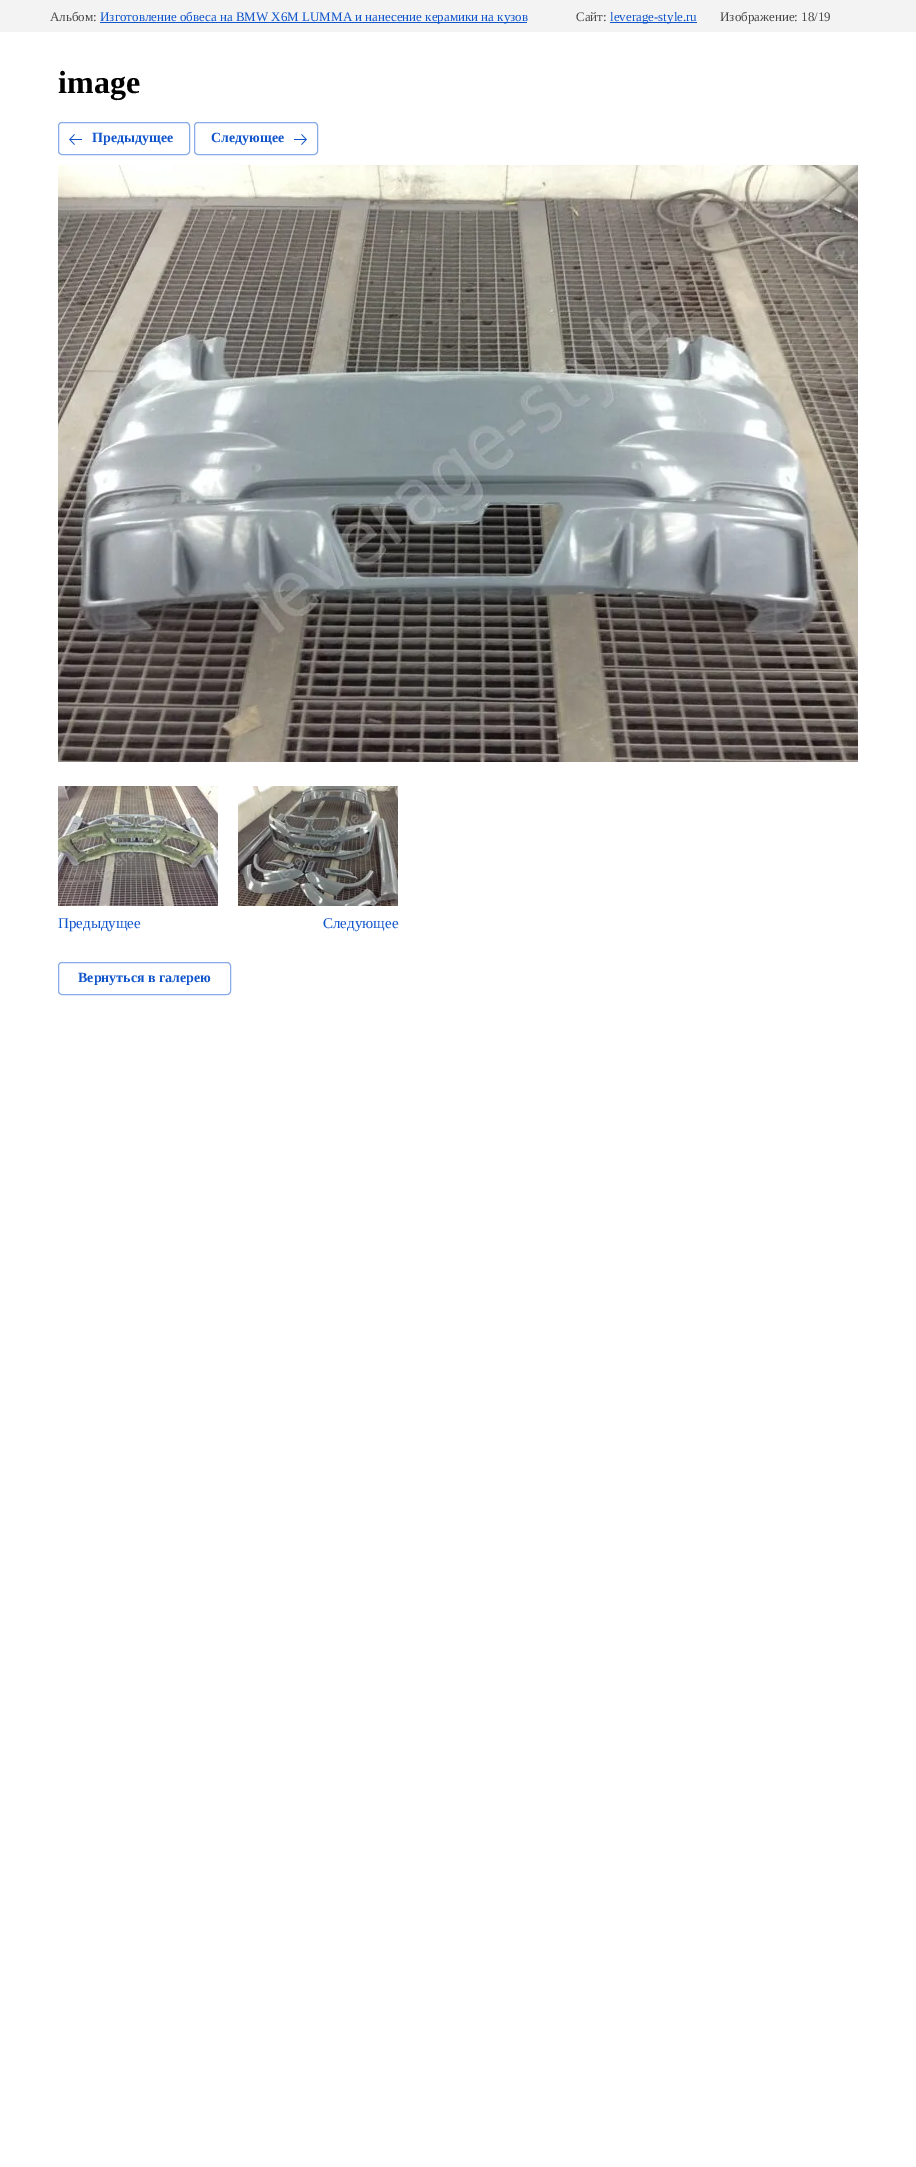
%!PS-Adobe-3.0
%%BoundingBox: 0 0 916 2167
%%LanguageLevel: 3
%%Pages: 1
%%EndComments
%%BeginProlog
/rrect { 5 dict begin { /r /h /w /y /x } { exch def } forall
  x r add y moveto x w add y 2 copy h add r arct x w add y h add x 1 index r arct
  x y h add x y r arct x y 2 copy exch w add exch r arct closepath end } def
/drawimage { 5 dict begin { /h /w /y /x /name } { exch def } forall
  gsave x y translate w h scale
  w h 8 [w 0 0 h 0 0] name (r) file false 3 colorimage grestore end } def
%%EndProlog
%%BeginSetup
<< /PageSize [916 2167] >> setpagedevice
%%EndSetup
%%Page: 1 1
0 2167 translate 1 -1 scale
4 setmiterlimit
1 setgray
0 0 916 2167 rectfill
0.953 setgray
0 0 916 32 rectfill
0.067 0.333 0.8 setrgbcolor
100 22 427 1 rectfill
610 22 87 1 rectfill
0.533 0.667 0.902 setrgbcolor
58.5 122.5 131 32 3.5 rrect stroke
(images/1.raw) 69 134 13 11 drawimage
194.5 122.5 123 32 3.5 rrect stroke
(images/2.raw) 294 134 13 11 drawimage
(images/3.raw) 58 165 800 597 drawimage
(images/4.raw) 58 786 160 120 drawimage
(images/5.raw) 238 786 160 120 drawimage
58.5 962.5 172 32 3.5 rrect stroke
/LiberationSerif-Regular [13 0 0 -13 0 0] selectfont
0.282 setgray
50 21 moveto (Альбом:) show
0.067 0.333 0.8 setrgbcolor
100 21 moveto (Изготовление обвеса на BMW X6M LUMMA и нанесение керамики на кузов) show
0.282 setgray
576 21 moveto (Сайт:) show
0.067 0.333 0.8 setrgbcolor
610 21 moveto (leverage-style.ru) show
0.282 setgray
720 21 moveto (Изображение: 18/19) show
/LiberationSerif-Bold [32 0 0 -32 0 0] selectfont
0 setgray
58 93 moveto (image) show
/LiberationSerif-Bold [14 0 0 -14 0 0] selectfont
0.067 0.333 0.8 setrgbcolor
92 142 moveto (Предыдущее) show
211 142 moveto (Следующее) show
/LiberationSerif-Regular [15 0 0 -15 0 0] selectfont
58 928 moveto (Предыдущее) show
323 928 moveto (Следующее) show
/LiberationSerif-Bold [14 0 0 -14 0 0] selectfont
78 982 moveto (Вернуться в галерею) show
showpage
%%EOF
